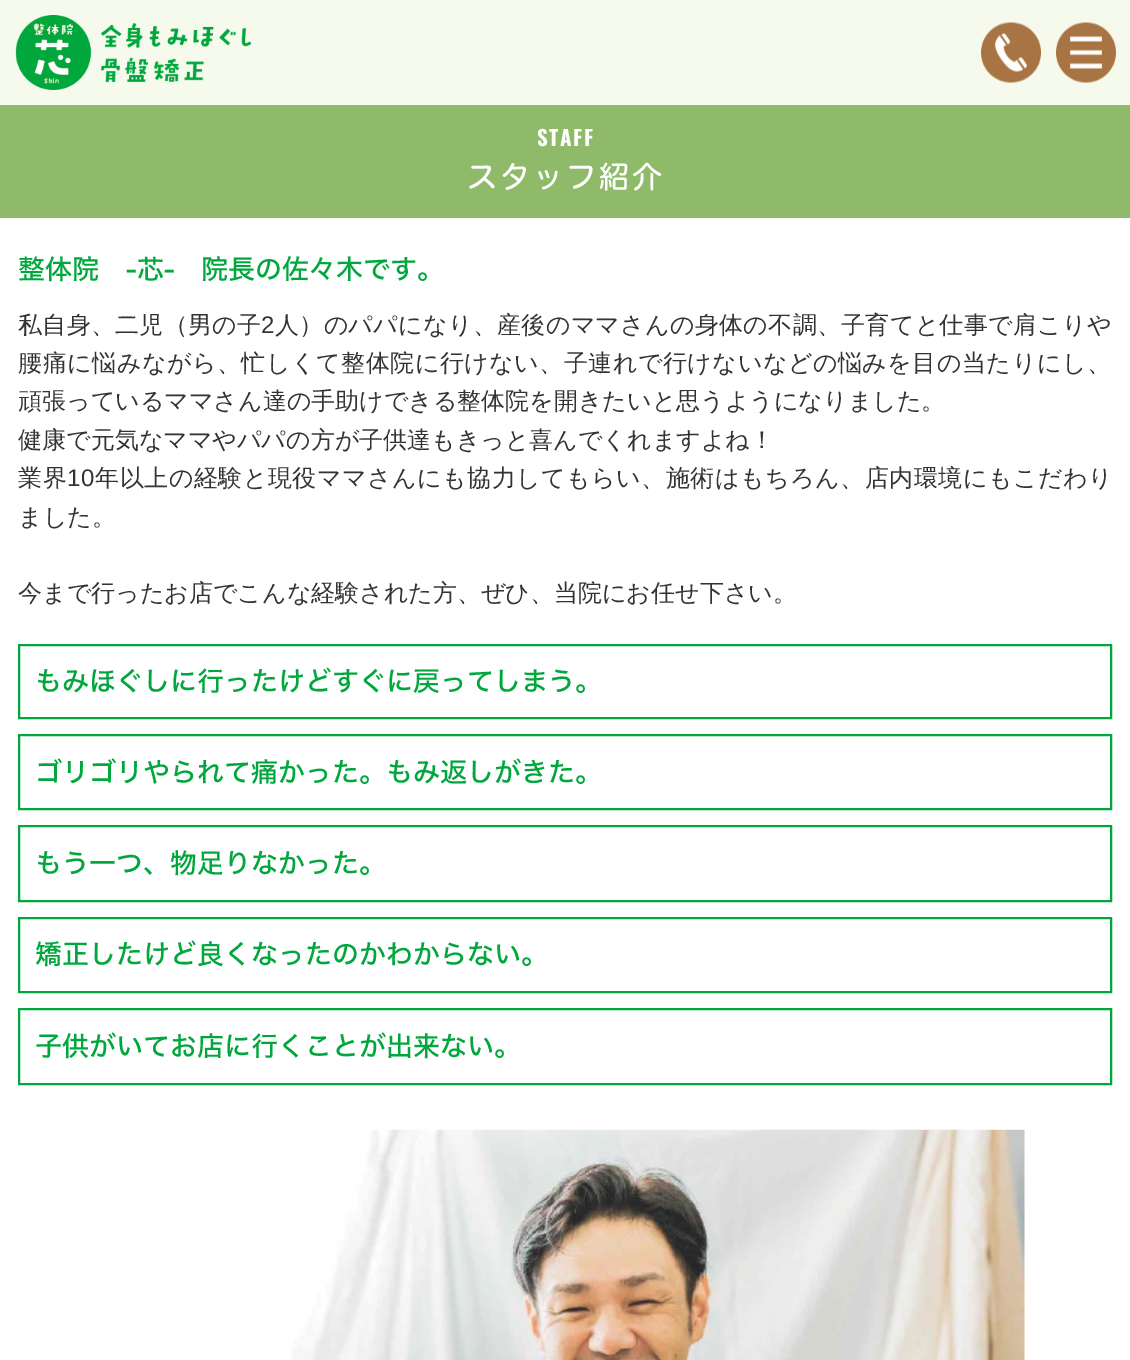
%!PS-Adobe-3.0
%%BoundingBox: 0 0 1130 1360
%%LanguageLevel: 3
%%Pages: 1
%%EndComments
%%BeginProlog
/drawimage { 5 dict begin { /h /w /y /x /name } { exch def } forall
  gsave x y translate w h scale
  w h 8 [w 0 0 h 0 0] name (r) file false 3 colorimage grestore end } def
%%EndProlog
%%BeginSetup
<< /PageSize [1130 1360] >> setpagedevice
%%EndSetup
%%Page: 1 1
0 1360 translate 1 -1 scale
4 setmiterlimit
1 setgray
0 0 1130 1360 rectfill
0.965 0.98 0.929 setrgbcolor
0 0 1130 105 rectfill
(images/1.raw) 15 15 237 75 drawimage
(images/2.raw) 981 22 60 61 drawimage
(images/3.raw) 1056 22 60 61 drawimage
0.557 0.729 0.412 setrgbcolor
0 105 1130 113 rectfill
0 0.655 0.235 setrgbcolor
2 setlinewidth
19 645 1092 73 rectstroke
19 735 1092 74 rectstroke
19 826 1092 75 rectstroke
19 918 1092 74 rectstroke
19 1009 1092 75 rectstroke
(images/4.raw) 289 1129 736 231 drawimage
/Oswald-Bold [21 0 0 -21 0 0] selectfont
1 setgray
537 146 moveto 1.5 0 (STAFF) ashow
/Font-Medium [30 0 0 -30 0 0] selectfont
467 188 moveto 3 0 (スタッフ紹介) ashow
/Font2-Medium [27 0 0 -27 0 0] selectfont
0 0.655 0.235 setrgbcolor
18 279 moveto (整体院　-芯-　院長の佐々木です。) show
/WenQuanYiZenHei-Medium [24 0 0 -24 0 0] selectfont
0.2 setgray
18 333 moveto 0.3 0 (私自身、二児（男の子) ashow
/LiberationSans-Regular [24 0 0 -24 0 0] selectfont
261 333 moveto 0.3 0 (2) ashow
/WenQuanYiZenHei-Medium [24 0 0 -24 0 0] selectfont
275 333 moveto 0.3 0 (人）のパパになり、産後のママさんの身体の不調、子育てと仕事で肩こりや) ashow
18 371 moveto 0.5 0 (腰痛に悩みながら、忙しくて整体院に行けない、子連れで行けないなどの悩みを目の当たりにし、) ashow
18 409 moveto (頑張っているママさん達の手助けできる整体院を開きたいと思うようになりました。) show
18 448 moveto (健康で元気なママやパパの方が子供達もきっと喜んでくれますよね！) show
18 486 moveto 0.5 0 (業界) ashow
/LiberationSans-Regular [24 0 0 -24 0 0] selectfont
67 486 moveto 0.5 0 (10) ashow
/WenQuanYiZenHei-Medium [24 0 0 -24 0 0] selectfont
95 486 moveto 0.5 0 (年以上の経験と現役ママさんにも協力してもらい、施術はもちろん、店内環境にもこだわり) ashow
18 525 moveto (ました。) show
18 601 moveto (今まで行ったお店でこんな経験された方、ぜひ、当院にお任せ下さい。) show
/Font2-Medium [27 0 0 -27 0 0] selectfont
0 0.655 0.235 setrgbcolor
35 691 moveto (もみほぐしに行ったけどすぐに戻ってしまう。) show
35 782 moveto (ゴリゴリやられて痛かった。もみ返しがきた。) show
35 873 moveto (もう一つ、物足りなかった。) show
35 964 moveto (矯正したけど良くなったのかわからない。) show
35 1056 moveto (子供がいてお店に行くことが出来ない。) show
showpage
%%EOF
